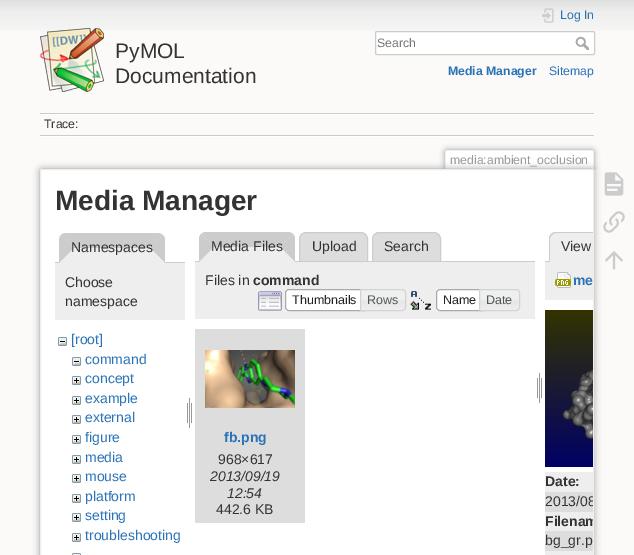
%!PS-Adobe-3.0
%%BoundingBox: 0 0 634 555
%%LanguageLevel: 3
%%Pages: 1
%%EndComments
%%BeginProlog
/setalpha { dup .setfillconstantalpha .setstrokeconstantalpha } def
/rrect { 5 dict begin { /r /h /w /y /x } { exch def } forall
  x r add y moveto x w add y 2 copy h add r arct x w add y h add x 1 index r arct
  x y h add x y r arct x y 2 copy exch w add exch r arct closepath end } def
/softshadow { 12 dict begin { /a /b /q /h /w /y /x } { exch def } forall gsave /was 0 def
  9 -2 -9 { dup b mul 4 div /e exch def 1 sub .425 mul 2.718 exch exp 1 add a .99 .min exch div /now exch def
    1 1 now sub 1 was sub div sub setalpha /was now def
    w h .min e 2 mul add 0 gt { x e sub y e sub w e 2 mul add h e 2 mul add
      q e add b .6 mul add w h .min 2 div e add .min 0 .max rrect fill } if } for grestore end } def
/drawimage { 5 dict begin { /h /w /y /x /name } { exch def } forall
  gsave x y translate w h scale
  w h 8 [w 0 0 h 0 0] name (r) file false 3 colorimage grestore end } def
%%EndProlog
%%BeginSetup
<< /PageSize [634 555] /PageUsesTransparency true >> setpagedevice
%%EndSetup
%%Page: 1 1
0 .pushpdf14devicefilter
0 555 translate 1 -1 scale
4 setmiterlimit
0.984 0.98 0.976 setrgbcolor
0 0 634 555 rectfill
(images/1.raw) 0 0 634 31 drawimage
(images/2.raw) 40 28 64 64 drawimage
(images/3.raw) 542 8 12 15 drawimage
1 setgray
375.5 31.5 219 23 1.5 rrect gsave fill grestore
0.8 setgray
stroke
(images/4.raw) 575 36 14 14 drawimage
40 113 554 1 rectfill
1 setgray
40 136 554 1 rectfill
40 114 554 1 rectfill
0.8 setgray
40 135 554 1 rectfill
gsave
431 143 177 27 rectclip
0.6 setgray
445 150 149 20 2 3 1 softshadow
grestore
1 setgray
newpath 447 151 moveto 592 151 lineto 592.5 151 593 151.5 593 152 curveto 593 170 lineto 446 170 lineto 446 152 lineto 446 151.5 446.5 151 447 151 curveto closepath fill
0.933 setgray
446 150 147 1 rectfill
593 151 1 19 rectfill
445 151 1 19 rectfill
0.6 setgray
40 169 554 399 2 3.5 1 softshadow
1 setgray
40.5 169.5 553 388 1.5 rrect gsave fill grestore
0.933 setgray
stroke
0.8 setgray
55 262 130 1 rectfill
0.933 setgray
newpath 66 233 moveto 158 233 lineto 162 233 165 236 165 240 curveto 165 263 lineto 59 263 lineto 59 240 lineto 59 236 62 233 66 233 curveto closepath fill
0.8 setgray
newpath 66 233 moveto 159 233 lineto 163 235 lineto 150 248 lineto 74 248 lineto 61 235 lineto 62 234 64 233 66 233 curveto closepath fill
newpath 163 235 moveto 150 248 lineto 165 263 lineto 165 240 lineto 165 238 164 236 163 235 curveto closepath fill
0.933 setgray
newpath 165 263 moveto 150 248 lineto 74 248 lineto 59 263 lineto closepath fill
0.8 setgray
newpath 59 263 moveto 59 240 lineto 59 238 60 236 61 235 curveto 74 248 lineto closepath fill
0.933 setgray
55 263 130 57 rectfill
(images/5.raw) 58 337 9 9 drawimage
(images/5.raw) 72 357 9 9 drawimage
(images/6.raw) 72 376 9 9 drawimage
(images/6.raw) 72 396 9 9 drawimage
(images/6.raw) 72 415 9 9 drawimage
(images/6.raw) 72 435 9 9 drawimage
(images/6.raw) 72 455 9 9 drawimage
(images/6.raw) 72 474 9 9 drawimage
(images/6.raw) 72 494 9 9 drawimage
(images/6.raw) 72 513 9 9 drawimage
(images/6.raw) 72 533 9 9 drawimage
(images/7.raw) 72 553 9 2 drawimage
(images/8.raw) 187 397 5 31 drawimage
0.8 setgray
newpath 206 232 moveto 288 232 lineto 290 232 292 233 293 234 curveto 280 247 lineto 214 247 lineto 201 234 lineto 202 233 204 232 206 232 curveto closepath fill
0.867 setgray
newpath 306 232.5 moveto 361 232.5 lineto 364.5 232.5 367.5 235.5 367.5 239 curveto 367.5 261.5 lineto 299.5 261.5 lineto 299.5 239 lineto 299.5 235.5 302.5 232.5 306 232.5 curveto closepath gsave fill grestore
0.8 setgray
stroke
0.867 setgray
newpath 379 232.5 moveto 434 232.5 lineto 437.5 232.5 440.5 235.5 440.5 239 curveto 440.5 261.5 lineto 372.5 261.5 lineto 372.5 239 lineto 372.5 235.5 375.5 232.5 379 232.5 curveto closepath gsave fill grestore
0.8 setgray
stroke
195 261 340 1 rectfill
newpath 293 234 moveto 280 247 lineto 295 262 lineto 295 239 lineto 295 237 294 235 293 234 curveto closepath fill
0.933 setgray
newpath 295 262 moveto 280 247 lineto 214 247 lineto 199 262 lineto closepath fill
0.8 setgray
newpath 199 262 moveto 199 239 lineto 199 237 200 235 201 234 curveto 214 247 lineto closepath fill
0.933 setgray
195 262 340 57 rectfill
(images/9.raw) 258 291 24 20 drawimage
1 setgray
285 289 75 22 rectfill
0.667 setgray
newpath 289 289.5 moveto 364.5 289.5 lineto 364.5 310.5 lineto 289 310.5 lineto 287 310.5 285.5 309 285.5 307 curveto 285.5 293 lineto 285.5 291 287 289.5 289 289.5 curveto closepath stroke
(images/10.raw) 361 289 45 22 drawimage
0.827 setgray
newpath 360.5 289.5 moveto 402 289.5 lineto 404 289.5 405.5 291 405.5 293 curveto 405.5 307 lineto 405.5 309 404 310.5 402 310.5 curveto 360.5 310.5 lineto closepath stroke
(images/11.raw) 410 291 21 19 drawimage
1 setgray
436 289 43 22 rectfill
0.667 setgray
newpath 440 289.5 moveto 483.5 289.5 lineto 483.5 310.5 lineto 440 310.5 lineto 438 310.5 436.5 309 436.5 307 curveto 436.5 293 lineto 436.5 291 438 289.5 440 289.5 curveto closepath stroke
(images/12.raw) 480 289 40 22 drawimage
0.827 setgray
newpath 479.5 289.5 moveto 516 289.5 lineto 518 289.5 519.5 291 519.5 293 curveto 519.5 307 lineto 519.5 309 518 310.5 516 310.5 curveto 479.5 310.5 lineto closepath stroke
(images/8.raw) 537 372 5 31 drawimage
0.867 setgray
195 329 110 194 rectfill
(images/13.raw) 205 350 90 58 drawimage
0.933 setgray
newpath 556 232 moveto 593 232 lineto 593 262 lineto 549 262 lineto 549 239 lineto 549 235 552 232 556 232 curveto closepath fill
0.8 setgray
newpath 556 232 moveto 593 232 lineto 593 233 lineto 556 233 lineto 554 233 553 234 552 235 curveto 551 234 lineto 552 233 554 232 556 232 curveto closepath fill
newpath 549 262 moveto 550 261 lineto 550 239 lineto 550 237.5 551 236 552 235 curveto 551 234 lineto 550 235 549 237 549 239 curveto closepath fill
545 261 4 1 rectfill
0.933 setgray
545 262 48 38 rectfill
(images/14.raw) 555 272 16 16 drawimage
(images/15.raw) 545 310 48 157 drawimage
545 472 48 20 rectfill
0.867 setgray
545 492 48 20 rectfill
0.933 setgray
545 512 48 19 rectfill
0.867 setgray
545 531 48 20 rectfill
0.933 setgray
545 551 48 4 rectfill
(images/16.raw) 604 172 20 24 drawimage
(images/17.raw) 603 211 22 22 drawimage
(images/18.raw) 605 251 18 19 drawimage
/LiberationSans-Regular [21 0 0 -21 0 0] selectfont
0.2 setgray
115 58 moveto (PyMOL) show
115 83 moveto (Documentation) show
/LiberationSans-Regular [12.25 0 0 -12.25 0 0] selectfont
0.169 0.451 0.718 setrgbcolor
560 19 moveto (Log In) show
0.459 setgray
377 47 moveto (Search) show
/LiberationSans-Bold [12.25 0 0 -12.25 0 0] selectfont
0.169 0.451 0.718 setrgbcolor
448 75 moveto (Media Manager) show
/LiberationSans-Regular [12.25 0 0 -12.25 0 0] selectfont
549 75 moveto (Sitemap) show
0.2 setgray
44 128 moveto (Trace:) show
0.6 setgray
450 164 moveto (media:ambient_occlusion) show
/LiberationSans-Bold [28 0 0 -28 0 0] selectfont
0.2 setgray
55 210 moveto (Media Manager) show
/LiberationSans-Regular [14 0 0 -14 0 0] selectfont
71 252 moveto (Namespaces) show
65 287 moveto (Choose) show
65 306 moveto (namespace) show
0.169 0.451 0.718 setrgbcolor
71 344 moveto ([root]) show
85 364 moveto (command) show
85 383 moveto (concept) show
85 403 moveto (example) show
85 422 moveto (external) show
85 442 moveto (figure) show
85 462 moveto (media) show
85 481 moveto (mouse) show
85 501 moveto (platform) show
85 520 moveto (setting) show
85 540 moveto (troubleshooting) show
0.2 setgray
211 251 moveto (Media Files) show
312 251 moveto (Upload) show
384 251 moveto (Search) show
205 285 moveto (Files in) show
/LiberationSans-Bold [14 0 0 -14 0 0] selectfont
253 285 moveto (command) show
/LiberationSans-Regular [12.5 0 0 -12.5 0 0] selectfont
0.129 setgray
292 304 moveto (Thumbnails) show
0.333 setgray
367 304 moveto (Rows) show
0.129 setgray
443 304 moveto (Name) show
0.333 setgray
486 304 moveto (Date) show
/LiberationSans-Bold [14 0 0 -14 0 0] selectfont
0.169 0.451 0.718 setrgbcolor
224 442 moveto (fb.png) show
/LiberationSans-Regular [14 0 0 -14 0 0] selectfont
0.2 setgray
218 464 moveto (968×617) show
/LiberationSans-Italic [14 0 0 -14 0 0] selectfont
210 481 moveto (2013/09/19) show
227 498 moveto (12:54) show
/LiberationSans-Regular [14 0 0 -14 0 0] selectfont
216 514 moveto (442.6 KB) show
561 251 moveto (View) show
/LiberationSans-Bold [14 0 0 -14 0 0] selectfont
0.169 0.451 0.718 setrgbcolor
573 285 moveto (me) show
0.2 setgray
545 486 moveto (Date:) show
gsave
41 170 552 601 1 rrect clip newpath
/LiberationSans-Regular [14 0 0 -14 0 0] selectfont
545 506 moveto (2013/08) show
/LiberationSans-Bold [14 0 0 -14 0 0] selectfont
545 526 moveto (Filenam) show
grestore
/LiberationSans-Regular [14 0 0 -14 0 0] selectfont
545 545 moveto (bg_gr.p) show
.poppdf14devicefilter showpage
%%EOF
